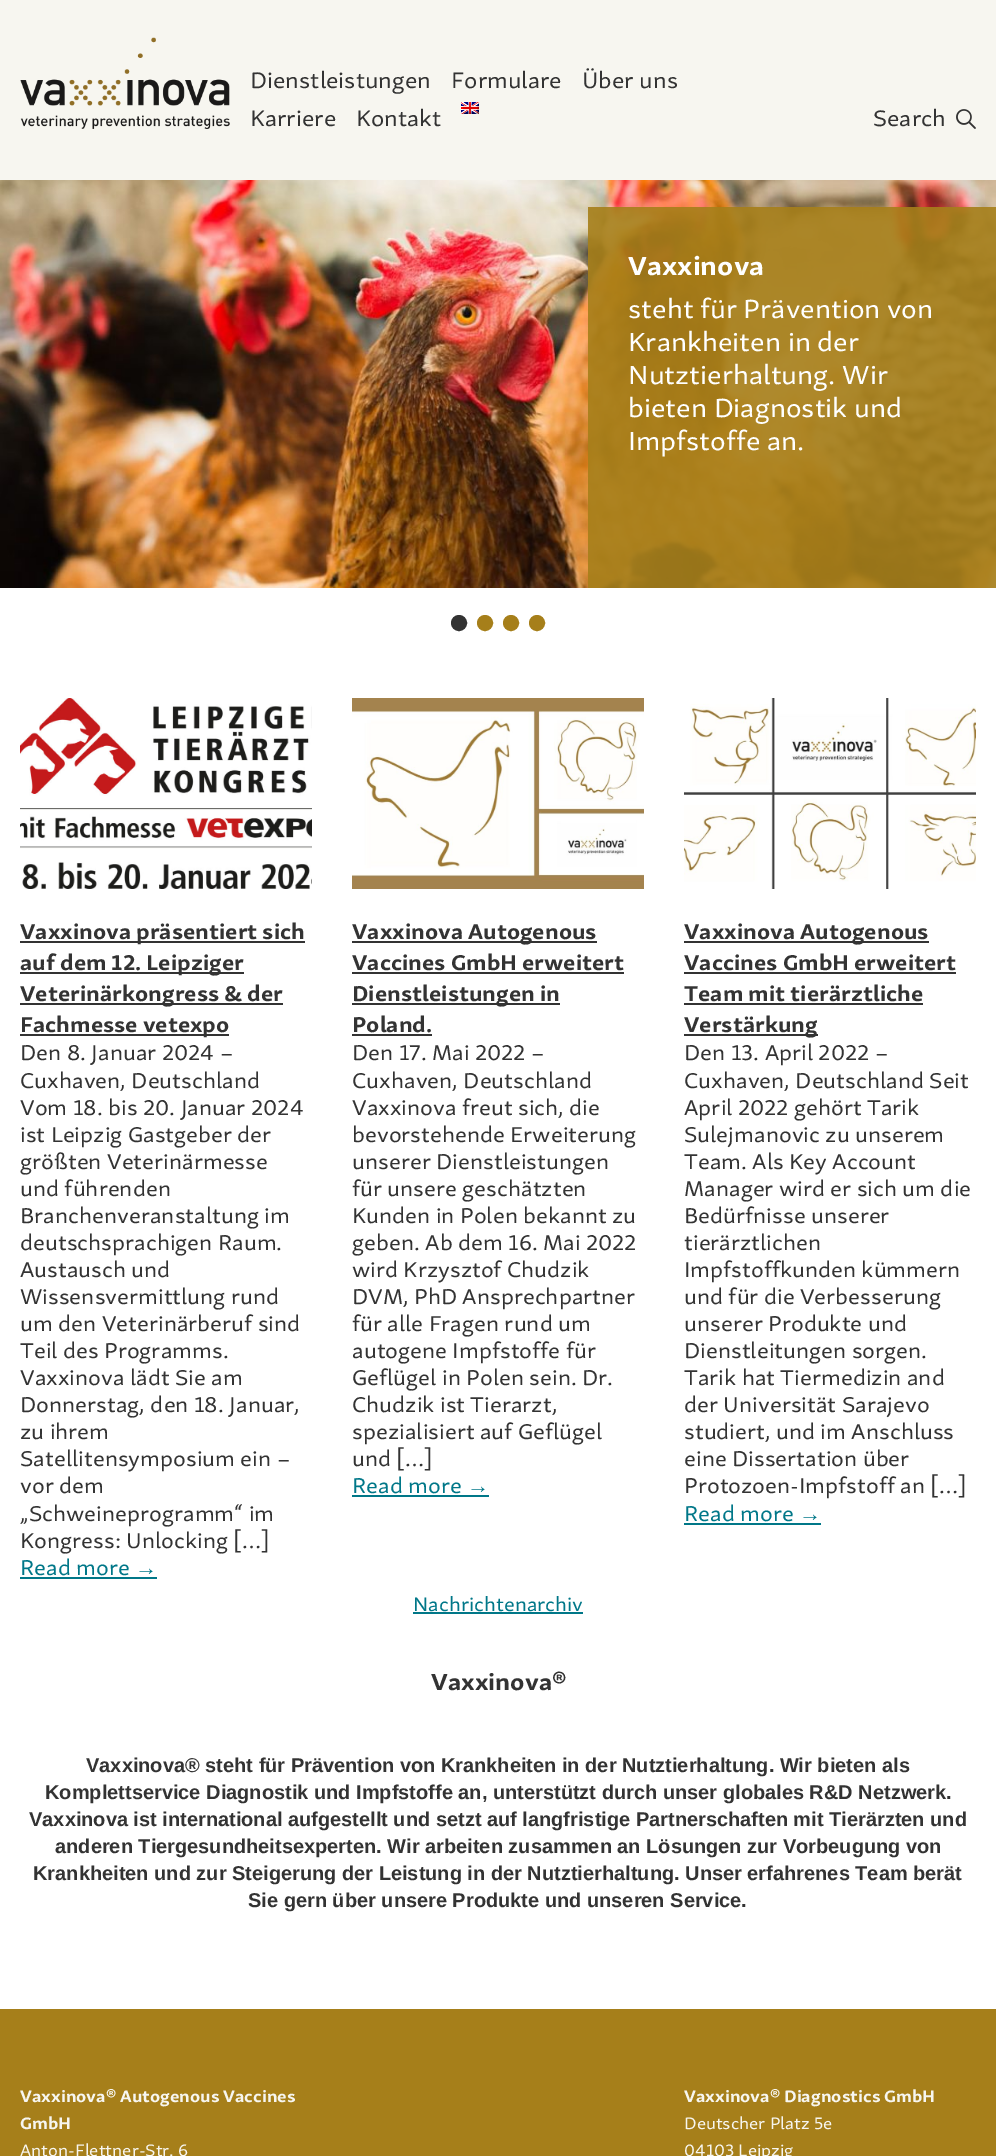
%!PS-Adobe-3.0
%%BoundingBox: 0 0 996 2156
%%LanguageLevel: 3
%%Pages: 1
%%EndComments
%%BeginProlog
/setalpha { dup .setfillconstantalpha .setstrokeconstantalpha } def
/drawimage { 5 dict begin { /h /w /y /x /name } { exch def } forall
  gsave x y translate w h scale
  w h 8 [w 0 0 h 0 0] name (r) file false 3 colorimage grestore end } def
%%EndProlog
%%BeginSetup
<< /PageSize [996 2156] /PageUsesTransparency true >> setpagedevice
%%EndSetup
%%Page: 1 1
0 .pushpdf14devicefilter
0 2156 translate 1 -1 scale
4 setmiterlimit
1 setgray
0 0 996 2156 rectfill
0.969 0.965 0.941 setrgbcolor
0 0 996 180 rectfill
(images/1.raw) 20 37 210 92 drawimage
(images/2.raw) 461 102 18 12 drawimage
(images/3.raw) 956 109 20 20 drawimage
(images/4.raw) 0 180 996 408 drawimage
0.9 setalpha
0.651 0.498 0.102 setrgbcolor
588 207 408 381 rectfill
1 setalpha
0.2 setgray
newpath 459 623 7 0 360 arc closepath gsave fill grestore
2 setlinewidth
stroke
0.651 0.498 0.102 setrgbcolor
newpath 485 623 7 0 360 arc closepath gsave fill grestore
stroke
newpath 511 623 7 0 360 arc closepath gsave fill grestore
stroke
newpath 537 623 7 0 360 arc closepath gsave fill grestore
stroke
(images/5.raw) 20 698 292 191 drawimage
0.2 setgray
20 941 285 2 rectfill
20 972 224 2 rectfill
20 1003 263 2 rectfill
20 1034 209 2 rectfill
0 0.467 0.533 setrgbcolor
20 1577 137 2 rectfill
(images/6.raw) 352 698 292 191 drawimage
0.2 setgray
352 941 245 2 rectfill
352 972 272 2 rectfill
352 1003 208 2 rectfill
352 1034 80 2 rectfill
0 0.467 0.533 setrgbcolor
352 1495 137 2 rectfill
(images/7.raw) 684 698 292 191 drawimage
0.2 setgray
684 941 245 2 rectfill
684 972 272 2 rectfill
684 1003 239 2 rectfill
684 1034 134 2 rectfill
0 0.467 0.533 setrgbcolor
684 1523 137 2 rectfill
413 1612 170 2 rectfill
0.651 0.498 0.102 setrgbcolor
0 2009 996 147 rectfill
/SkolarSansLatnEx-Regular [23 0 0 -23 0 0] selectfont
0.2 setgray
250 88 moveto (Dienstleistungen) show
451 88 moveto (Formulare) show
582 88 moveto (Über uns) show
250 126 moveto (Karriere) show
356 126 moveto (Kontakt) show
873 126 moveto (Search) show
/SkolarSansLatnEx-Bold [27 0 0 -27 0 0] selectfont
1 setgray
628 275 moveto (Vaxxinova) show
/SkolarSansLatnEx-Regular [27 0 0 -27 0 0] selectfont
628 318 moveto (steht für Prävention von) show
628 351 moveto (Krankheiten in der) show
628 384 moveto (Nutztierhaltung. Wir) show
628 417 moveto (bieten Diagnostik und) show
628 450 moveto (Impfstoffe an.) show
/SkolarSansLatnEx-Bold [22 0 0 -22 0 0] selectfont
0.2 setgray
20 939 moveto (Vaxxinova präsentiert sich) show
20 970 moveto (auf dem 12. Leipziger) show
20 1001 moveto (Veterinärkongress & der) show
20 1032 moveto (Fachmesse vetexpo) show
/SkolarSansLatnEx-Regular [22 0 0 -22 0 0] selectfont
20 1060 moveto (Den 8. Januar 2024 –) show
20 1088 moveto (Cuxhaven, Deutschland) show
20 1115 moveto (Vom 18. bis 20. Januar 2024) show
20 1142 moveto (ist Leipzig Gastgeber der) show
20 1169 moveto (größten Veterinärmesse) show
20 1196 moveto (und führenden) show
20 1223 moveto (Branchenveranstaltung im) show
20 1250 moveto (deutschsprachigen Raum.) show
20 1277 moveto (Austausch und) show
20 1304 moveto (Wissensvermittlung rund) show
20 1331 moveto (um den Veterinärberuf sind) show
20 1358 moveto (Teil des Programms.) show
20 1385 moveto (Vaxxinova lädt Sie am) show
20 1412 moveto (Donnerstag, den 18. Januar,) show
20 1439 moveto (zu ihrem) show
20 1466 moveto (Satellitensymposium ein –) show
20 1493 moveto (vor dem) show
20 1521 moveto („Schweineprogramm“ im) show
20 1548 moveto (Kongress: Unlocking […]) show
0 0.467 0.533 setrgbcolor
20 1575 moveto (Read more) show
/LiberationSans-Regular [22 0 0 -22 0 0] selectfont
135 1575 moveto (→) show
/SkolarSansLatnEx-Bold [22 0 0 -22 0 0] selectfont
0.2 setgray
352 939 moveto (Vaxxinova Autogenous) show
352 970 moveto (Vaccines GmbH erweitert) show
352 1001 moveto (Dienstleistungen in) show
352 1032 moveto (Poland.) show
/SkolarSansLatnEx-Regular [22 0 0 -22 0 0] selectfont
352 1060 moveto (Den 17. Mai 2022 –) show
352 1088 moveto (Cuxhaven, Deutschland) show
352 1115 moveto (Vaxxinova freut sich, die) show
352 1142 moveto (bevorstehende Erweiterung) show
352 1169 moveto (unserer Dienstleistungen) show
352 1196 moveto (für unsere geschätzten) show
352 1223 moveto (Kunden in Polen bekannt zu) show
352 1250 moveto (geben. Ab dem 16. Mai 2022) show
352 1277 moveto (wird Krzysztof Chudzik) show
352 1304 moveto (DVM, PhD Ansprechpartner) show
352 1331 moveto (für alle Fragen rund um) show
352 1358 moveto (autogene Impfstoffe für) show
352 1385 moveto (Geflügel in Polen sein. Dr.) show
352 1412 moveto (Chudzik ist Tierarzt,) show
352 1439 moveto (spezialisiert auf Geflügel) show
352 1466 moveto (und […]) show
0 0.467 0.533 setrgbcolor
352 1493 moveto (Read more) show
/LiberationSans-Regular [22 0 0 -22 0 0] selectfont
467 1493 moveto (→) show
/SkolarSansLatnEx-Bold [22 0 0 -22 0 0] selectfont
0.2 setgray
684 939 moveto (Vaxxinova Autogenous) show
684 970 moveto (Vaccines GmbH erweitert) show
684 1001 moveto (Team mit tierärztliche) show
684 1032 moveto (Verstärkung) show
/SkolarSansLatnEx-Regular [22 0 0 -22 0 0] selectfont
684 1060 moveto (Den 13. April 2022 –) show
684 1088 moveto (Cuxhaven, Deutschland Seit) show
684 1115 moveto (April 2022 gehört Tarik) show
684 1142 moveto (Sulejmanovic zu unserem) show
684 1169 moveto (Team. Als Key Account) show
684 1196 moveto (Manager wird er sich um die) show
684 1223 moveto (Bedürfnisse unserer) show
684 1250 moveto (tierärztlichen) show
684 1277 moveto (Impfstoffkunden kümmern) show
684 1304 moveto (und für die Verbesserung) show
684 1331 moveto (unserer Produkte und) show
684 1358 moveto (Dienstleitungen sorgen.) show
684 1385 moveto (Tarik hat Tiermedizin and) show
684 1412 moveto (der Universität Sarajevo) show
684 1439 moveto (studiert, und im Anschluss) show
684 1466 moveto (eine Dissertation über) show
684 1493 moveto (Protozoen-Impfstoff an […]) show
0 0.467 0.533 setrgbcolor
684 1521 moveto (Read more) show
/LiberationSans-Regular [22 0 0 -22 0 0] selectfont
799 1521 moveto (→) show
/SkolarSansLatnEx-Regular [20 0 0 -20 0 0] selectfont
413 1611 moveto (Nachrichtenarchiv) show
/SkolarSansLatnEx-Bold [24 0 0 -24 0 0] selectfont
0.2 setgray
431 1690 moveto (Vaxxinova®) show
/LiberationSans-Bold [20 0 0 -20 0 0] selectfont
86 1772 moveto (Vaxxinova® steht für Prävention von Krankheiten in der Nutztierhaltung. Wir bieten als) show
45 1799 moveto (Komplettservice Diagnostik und Impfstoffe an, unterstützt durch unser globales R&D Netzwerk.) show
29 1826 moveto (Vaxxinova ist international aufgestellt und setzt auf langfristige Partnerschaften mit Tierärzten und) show
55 1853 moveto (anderen Tiergesundheitsexperten. Wir arbeiten zusammen an Lösungen zur Vorbeugung von) show
33 1880 moveto (Krankheiten und zur Steigerung der Leistung in der Nutztierhaltung. Unser erfahrenes Team berät) show
248 1907 moveto (Sie gern über unsere Produkte und unseren Service.) show
/SkolarSansLatnEx-Bold [17 0 0 -17 0 0] selectfont
0.969 0.965 0.941 setrgbcolor
20 2102 moveto (Vaxxinova® Autogenous Vaccines) show
20 2129 moveto (GmbH) show
/SkolarSansLatnEx-Regular [17 0 0 -17 0 0] selectfont
20 2156 moveto (Anton-Flettner-Str. 6) show
/SkolarSansLatnEx-Bold [17 0 0 -17 0 0] selectfont
684 2102 moveto (Vaxxinova® Diagnostics GmbH) show
/SkolarSansLatnEx-Regular [17 0 0 -17 0 0] selectfont
684 2129 moveto (Deutscher Platz 5e) show
684 2156 moveto (04103 Leipzig) show
.poppdf14devicefilter showpage
%%EOF
